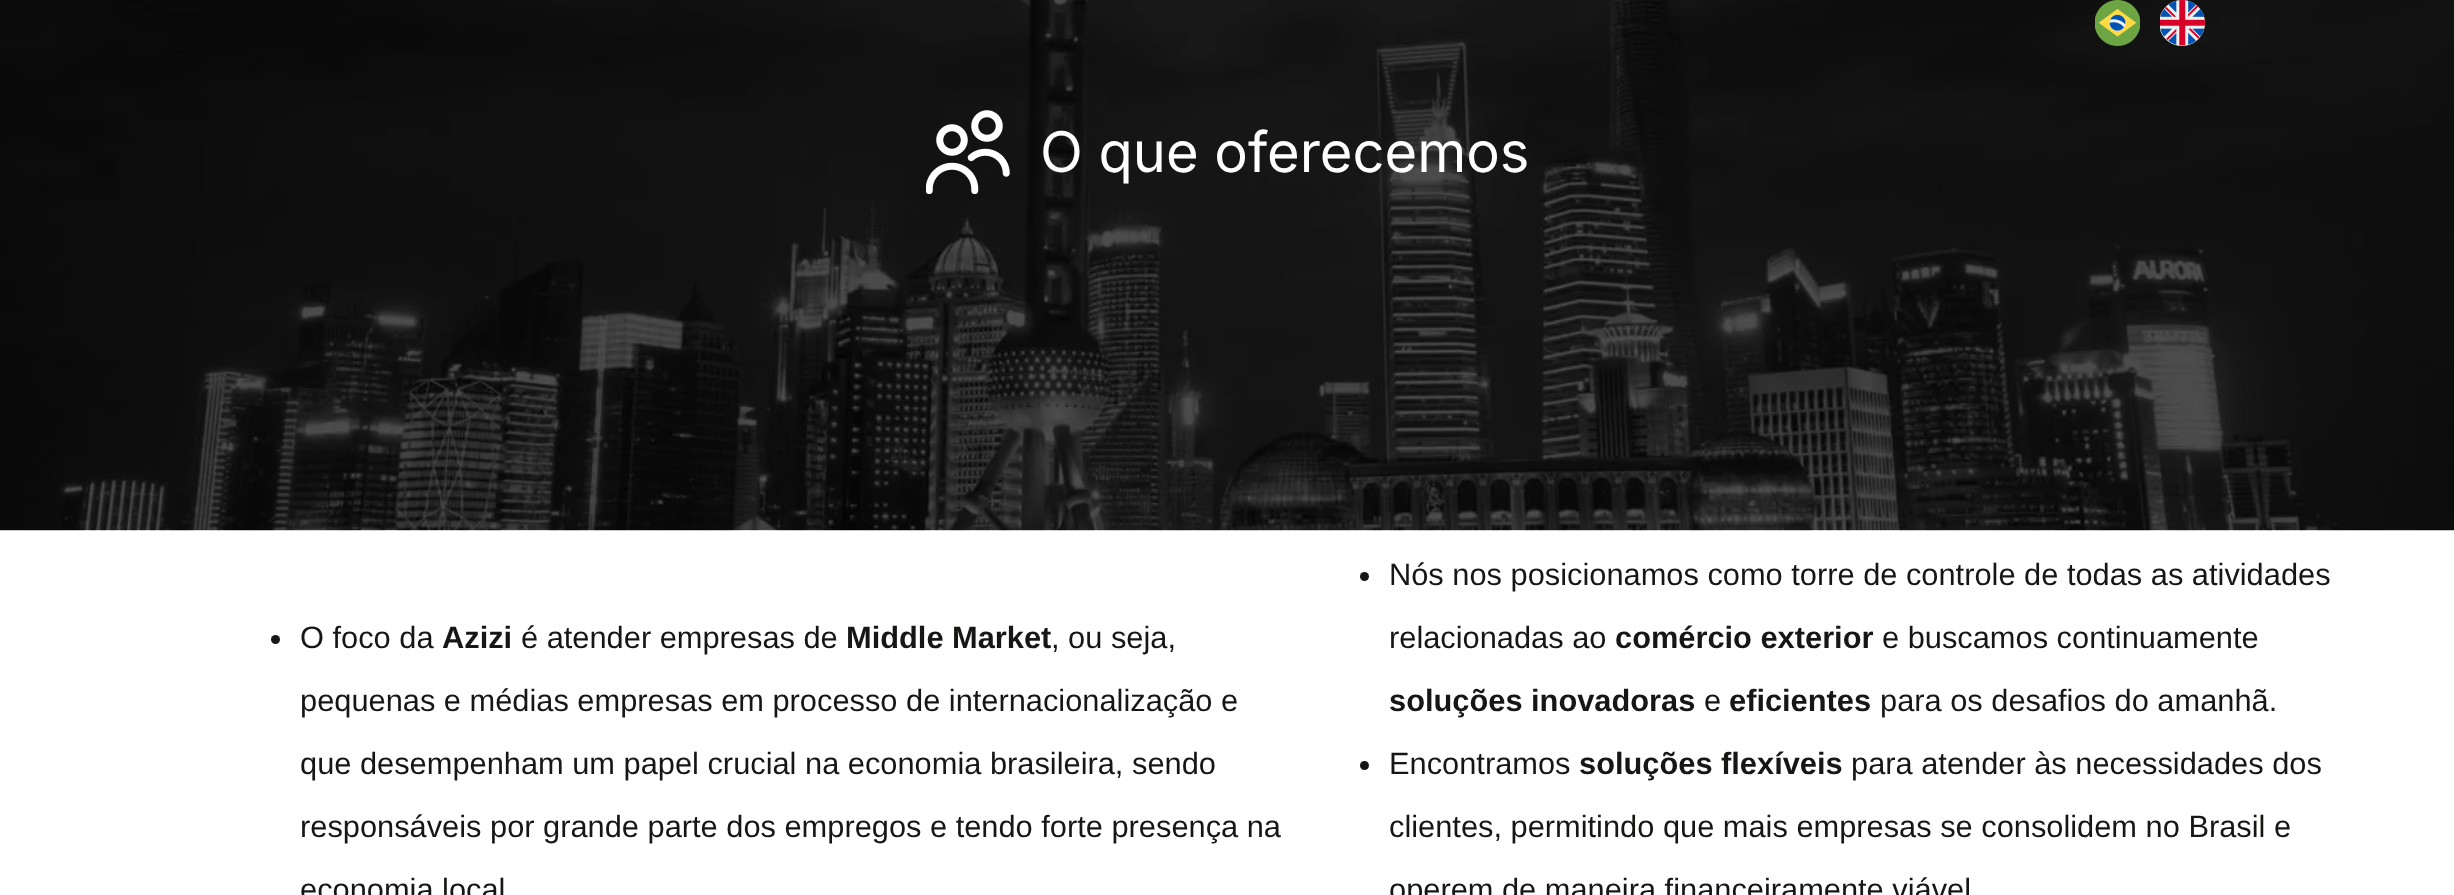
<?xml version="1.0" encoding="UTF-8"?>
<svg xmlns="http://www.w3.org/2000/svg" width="2454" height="895">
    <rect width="100%" height="100%" fill="#FFFFFF"/>
    <image x="0" y="0" width="2454" height="531" href="img_03.png"/>
    <image x="2095" y="0" width="45" height="46" href="img_01.png"/>
    <image x="2160" y="0" width="45" height="46" href="img_02.png"/>
    <image x="926" y="110" width="84" height="84" href="img_04.png"/>
    <text x="1040" y="172" font-family="Inter" font-size="56" fill="#FFFFFF">O que oferecemos</text>
    <circle cx="275.5" cy="639.5" r="4.5" fill="#161615"/>
    <text x="300" y="648" font-family="Liberation Sans" font-size="30.8" fill="#161615">O foco da</text>
    <text x="442" y="648" font-family="Liberation Sans" font-size="30.8" font-weight="700" fill="#161615">Azizi</text>
    <text x="521" y="648" font-family="Liberation Sans" font-size="30.8" fill="#161615">é atender empresas de</text>
    <text x="846" y="648" font-family="Liberation Sans" font-size="30.8" font-weight="700" fill="#161615">Middle Market</text>
    <text x="1051" y="648" font-family="Liberation Sans" font-size="30.8" fill="#161615">, ou seja,</text>
    <text x="300" y="711" font-family="Liberation Sans" font-size="30.8" fill="#161615">pequenas e médias empresas em processo de internacionalização e</text>
    <text x="300" y="774" font-family="Liberation Sans" font-size="30.8" fill="#161615">que desempenham um papel crucial na economia brasileira, sendo</text>
    <text x="300" y="837" font-family="Liberation Sans" font-size="30.8" fill="#161615">responsáveis por grande parte dos empregos e tendo forte presença na</text>
    <text x="300" y="900" font-family="Liberation Sans" font-size="30.8" fill="#161615">economia local</text>
    <circle cx="1364.5" cy="576.5" r="4.5" fill="#161615"/>
    <text x="1389" y="585" font-family="Liberation Sans" font-size="30.8" fill="#161615">Nós nos posicionamos como torre de controle de todas as atividades</text>
    <text x="1389" y="648" font-family="Liberation Sans" font-size="30.8" fill="#161615">relacionadas ao</text>
    <text x="1615" y="648" font-family="Liberation Sans" font-size="30.8" font-weight="700" fill="#161615">comércio exterior</text>
    <text x="1882" y="648" font-family="Liberation Sans" font-size="30.8" fill="#161615">e buscamos continuamente</text>
    <text x="1389" y="711" font-family="Liberation Sans" font-size="30.8" font-weight="700" fill="#161615">soluções inovadoras</text>
    <text x="1704" y="711" font-family="Liberation Sans" font-size="30.8" fill="#161615">e</text>
    <text x="1729" y="711" font-family="Liberation Sans" font-size="30.8" font-weight="700" fill="#161615">eficientes</text>
    <text x="1880" y="711" font-family="Liberation Sans" font-size="30.8" fill="#161615">para os desafios do amanhã.</text>
    <circle cx="1364.5" cy="765.5" r="4.5" fill="#161615"/>
    <text x="1389" y="774" font-family="Liberation Sans" font-size="30.8" fill="#161615">Encontramos</text>
    <text x="1579" y="774" font-family="Liberation Sans" font-size="30.8" font-weight="700" fill="#161615">soluções flexíveis</text>
    <text x="1851" y="774" font-family="Liberation Sans" font-size="30.8" fill="#161615">para atender às necessidades dos</text>
    <text x="1389" y="837" font-family="Liberation Sans" font-size="30.8" fill="#161615">clientes, permitindo que mais empresas se consolidem no Brasil e</text>
    <text x="1389" y="900" font-family="Liberation Sans" font-size="30.8" fill="#161615">operem de maneira financeiramente viável</text>
</svg>
